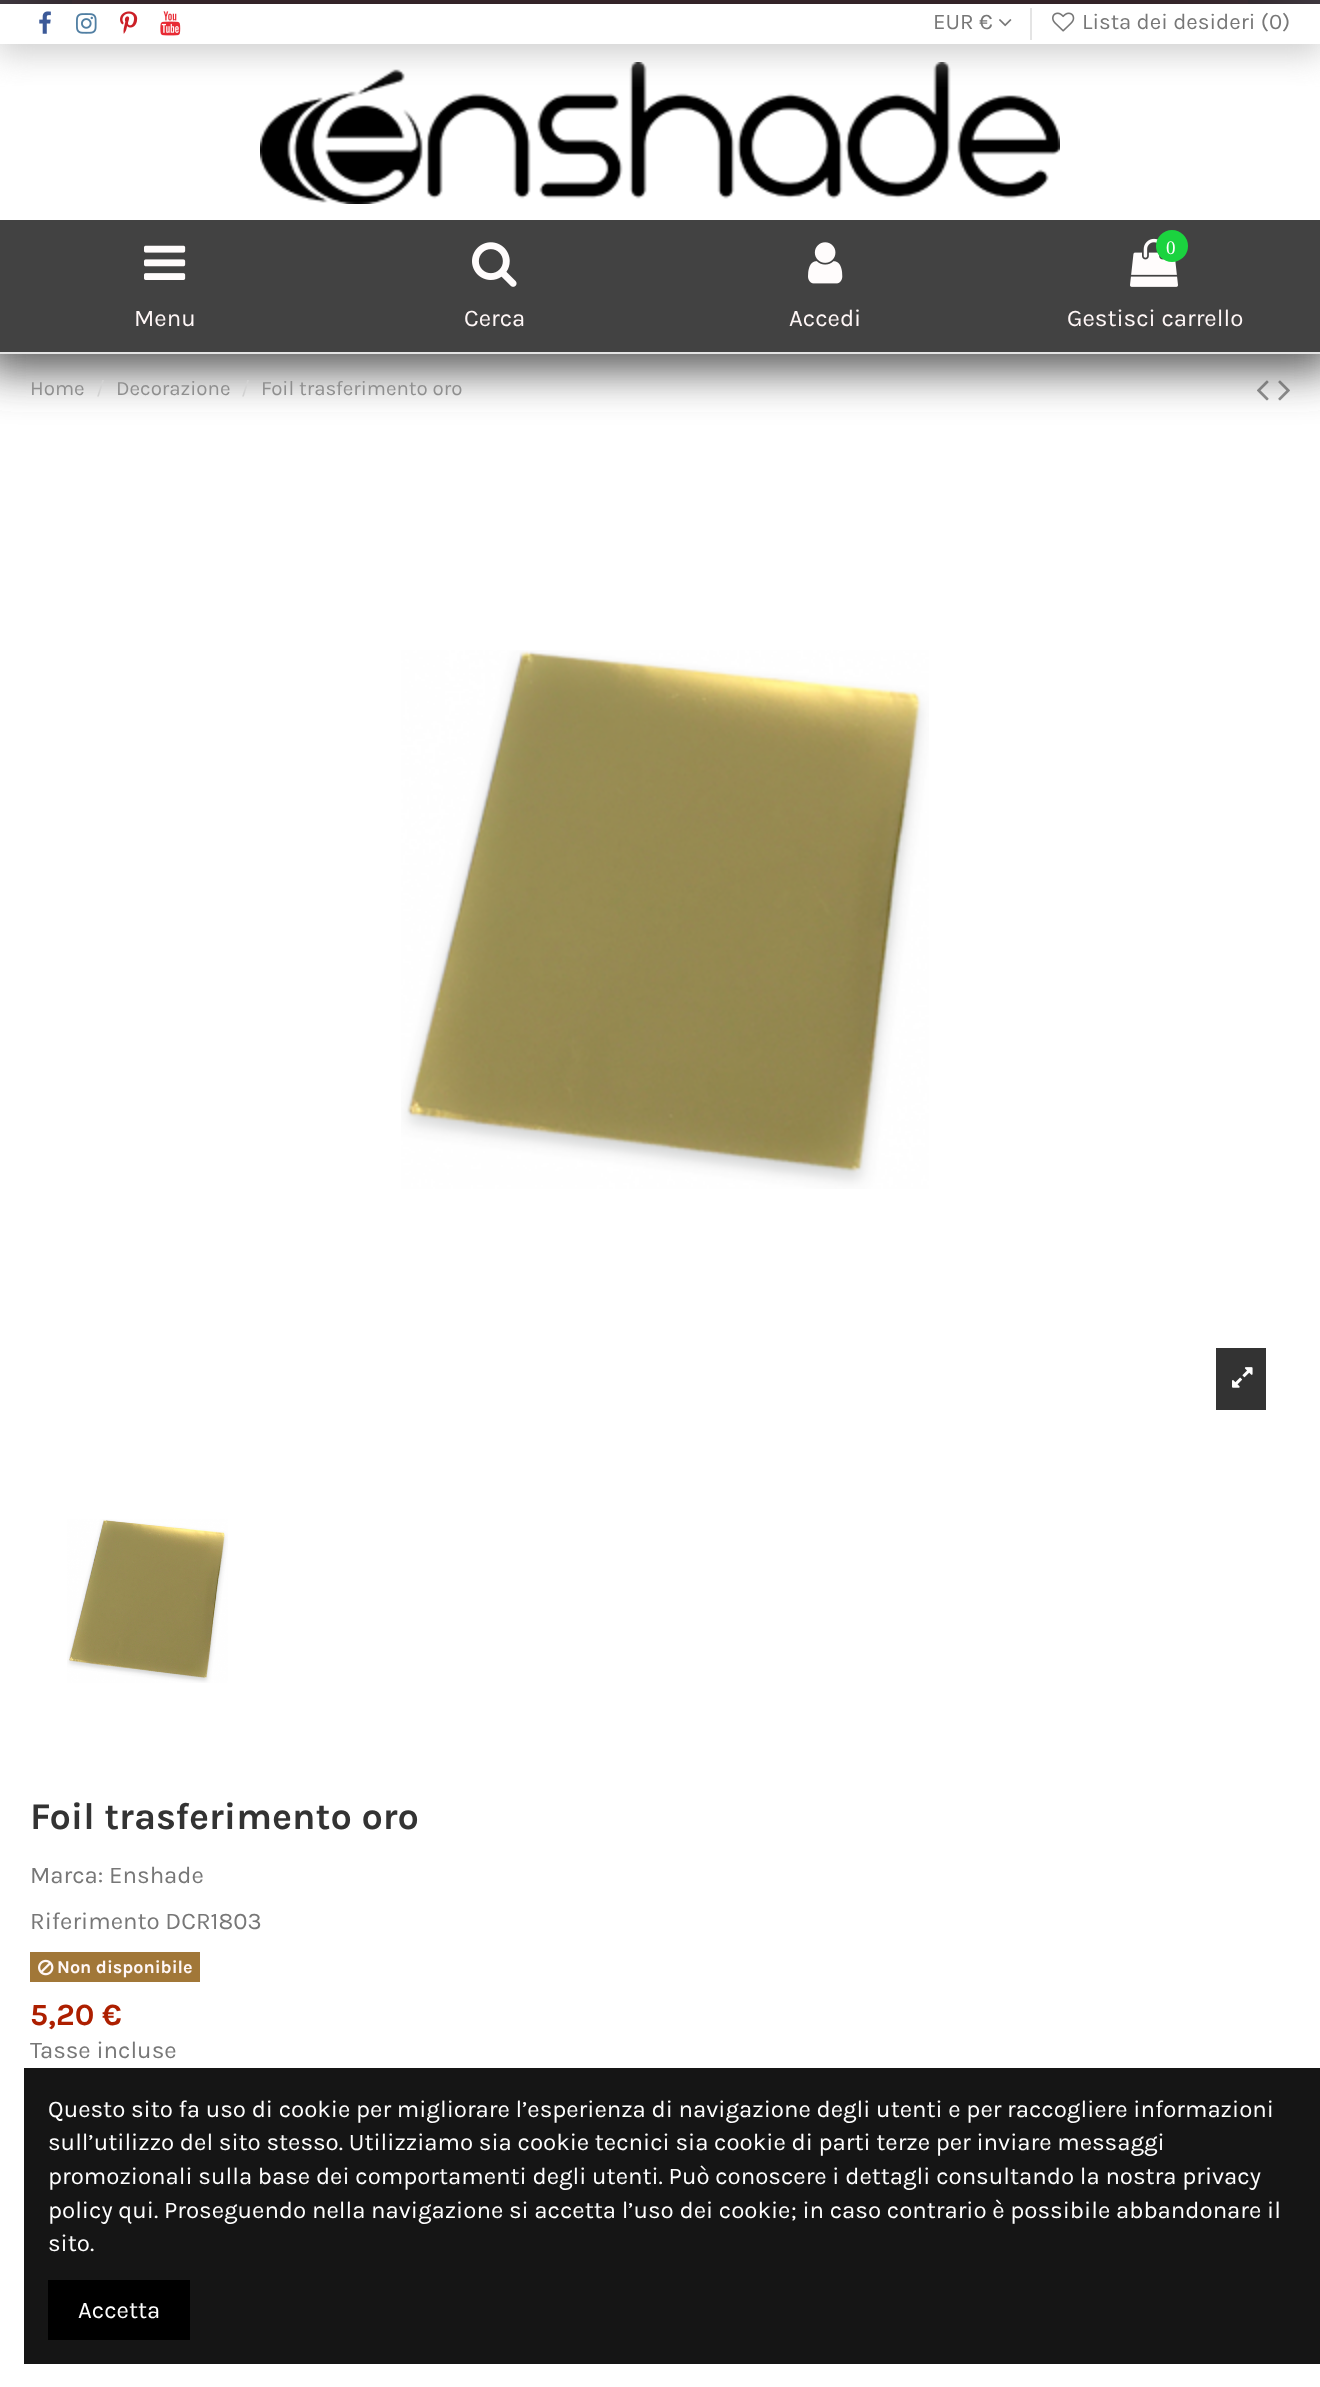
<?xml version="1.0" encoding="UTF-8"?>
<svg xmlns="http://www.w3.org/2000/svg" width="1320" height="2387">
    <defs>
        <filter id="blur1" x="-50%" y="-200%" width="200%" height="500%"><feGaussianBlur stdDeviation="96"/></filter>
        <clipPath id="clip1"><rect x="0" y="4" width="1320" height="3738"/></clipPath>
        <filter id="blur2" x="-50%" y="-200%" width="200%" height="500%"><feGaussianBlur stdDeviation="23"/></filter>
        <clipPath id="clip2"><rect x="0" y="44" width="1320" height="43"/></clipPath>
        <filter id="blur3" x="-50%" y="-200%" width="200%" height="500%"><feGaussianBlur stdDeviation="16"/></filter>
    </defs>
    <rect width="100%" height="100%" fill="#4E515C"/>
    <rect x="-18" y="-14" width="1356" height="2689" fill="#1C0303" filter="url(#blur1)"/>
    <rect x="0" y="354" width="1320" height="2033" fill="#FFFFFF"/>
    <image x="1257" y="380" width="12" height="21" href="img_12.png"/>
    <image x="1278" y="380" width="12" height="21" href="img_13.png"/>
    <g clip-path="url(#clip1)">
        <rect x="-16" y="-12" width="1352" height="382" fill="#525252" filter="url(#blur2)"/>
    </g>
    <rect x="0" y="4" width="1320" height="216" fill="#FFFFFF"/>
    <image x="260" y="62" width="800" height="142" href="img_07.png"/>
    <g clip-path="url(#clip1)">
        <g clip-path="url(#clip2)">
            <rect x="-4" y="6" width="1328" height="48" fill="#CFCFCF" filter="url(#blur3)"/>
        </g>
    </g>
    <image x="39" y="11" width="12" height="23" href="img_01.png"/>
    <image x="76" y="13" width="21" height="21" href="img_02.png"/>
    <image x="120" y="11" width="18" height="23" href="img_03.png"/>
    <image x="160" y="11" width="21" height="25" href="img_04.png"/>
    <text x="933" y="29" font-family="Karla" font-size="22.25" fill="#777777">EUR €</text>
    <image x="999" y="19" width="13" height="8" href="img_05.png"/>
    <rect x="1030" y="8" width="2" height="32" fill="#E4E4E4"/>
    <image x="1052" y="12" width="23" height="20" href="img_06.png"/>
    <text x="1082" y="29" font-family="Karla" font-size="22.25" fill="#777777">Lista dei desideri (</text>
    <text x="1269" y="29" font-family="Karla" font-size="22.25" fill="#777777">0)</text>
    <rect x="0" y="352" width="1320" height="2" fill="#E3E3E3"/>
    <rect x="0" y="220" width="1320" height="132" fill="#424242"/>
    <image x="144" y="245" width="42" height="35" href="img_08.png"/>
    <text x="134" y="326" font-family="Karla" font-size="24" fill="#FFF7F7">Menu</text>
    <image x="472" y="242" width="45" height="45" href="img_09.png"/>
    <text x="464" y="326" font-family="Karla" font-size="24" fill="#FFF7F7">Cerca</text>
    <image x="808" y="242" width="35" height="42" href="img_10.png"/>
    <text x="789" y="326" font-family="Karla" font-size="24" fill="#FFF7F7">Accedi</text>
    <image x="1130" y="238" width="48" height="49" href="img_11.png"/>
    <circle cx="1172" cy="246" r="16" fill="#1BD33F"/>
    <text x="1166" y="254" font-family="Liberation Serif" font-size="19" fill="#FFFFFF">0</text>
    <text x="1067" y="326" font-family="Karla" font-size="24" fill="#FFF7F7">Gestisci carrello</text>
    <text x="30" y="395" font-family="Karla" font-size="20.5" fill="#8F8F8F">Home</text>
    <text x="96" y="395" font-family="Karla" font-size="20.5" fill="#D2D2D2">/</text>
    <text x="116" y="395" font-family="Karla" font-size="20.5" fill="#8F8F8F">Decorazione</text>
    <text x="241" y="395" font-family="Karla" font-size="20.5" fill="#D2D2D2">/</text>
    <text x="261" y="395" font-family="Karla" font-size="20.5" fill="#8F8F8F">Foil trasferimento oro</text>
    <image x="401" y="650" width="528" height="539" href="img_14.png"/>
    <rect x="1216" y="1348" width="50" height="62" fill="#333333"/>
    <image x="1232" y="1367" width="21" height="21" href="img_15.png"/>
    <image x="67" y="1519" width="161" height="164" href="img_16.png"/>
    <text x="30" y="1829" font-family="Karla" font-size="37.75" font-weight="700" fill="#333333">Foil trasferimento oro</text>
    <text font-family="Karla" font-size="24" fill="#777777">
        <tspan x="30" y="1883">Marca: Enshade</tspan>
        <tspan x="30" y="1929">Riferimento DCR1803</tspan>
    </text>
    <rect x="30" y="1952" width="170" height="30" fill="#A17738"/>
    <image x="38" y="1959" width="16" height="17" href="img_17.png"/>
    <text x="57" y="1973" font-family="Karla" font-size="18" font-weight="700" fill="#FFF7F7">Non disponibile</text>
    <text x="30" y="2025" font-family="Karla" font-size="31" font-weight="700" fill="#AD1F00">5,20 €</text>
    <text x="30" y="2058" font-family="Karla" font-size="24" fill="#777777">Tasse incluse</text>
    <rect x="24" y="2068" width="1296" height="296" fill="#151515"/>
    <text font-family="Karla" font-size="24" fill="#FFFFFF">
        <tspan x="48" y="2117">Questo sito fa uso di cookie per migliorare l’esperienza di navigazione degli utenti e per raccogliere informazioni</tspan>
        <tspan x="48" y="2150">sull’utilizzo del sito stesso. Utilizziamo sia cookie tecnici sia cookie di parti terze per inviare messaggi</tspan>
        <tspan x="48" y="2184">promozionali sulla base dei comportamenti degli utenti. Può conoscere i dettagli consultando la nostra privacy</tspan>
        <tspan x="48" y="2218">policy qui. Proseguendo nella navigazione si accetta l’uso dei cookie; in caso contrario è possibile abbandonare il</tspan>
        <tspan x="48" y="2251">sito.</tspan>
    </text>
    <rect x="48" y="2280" width="142" height="60" fill="#000000"/>
    <text x="78" y="2318" font-family="Karla" font-size="24" fill="#FFFFFF">Accetta</text>
</svg>
